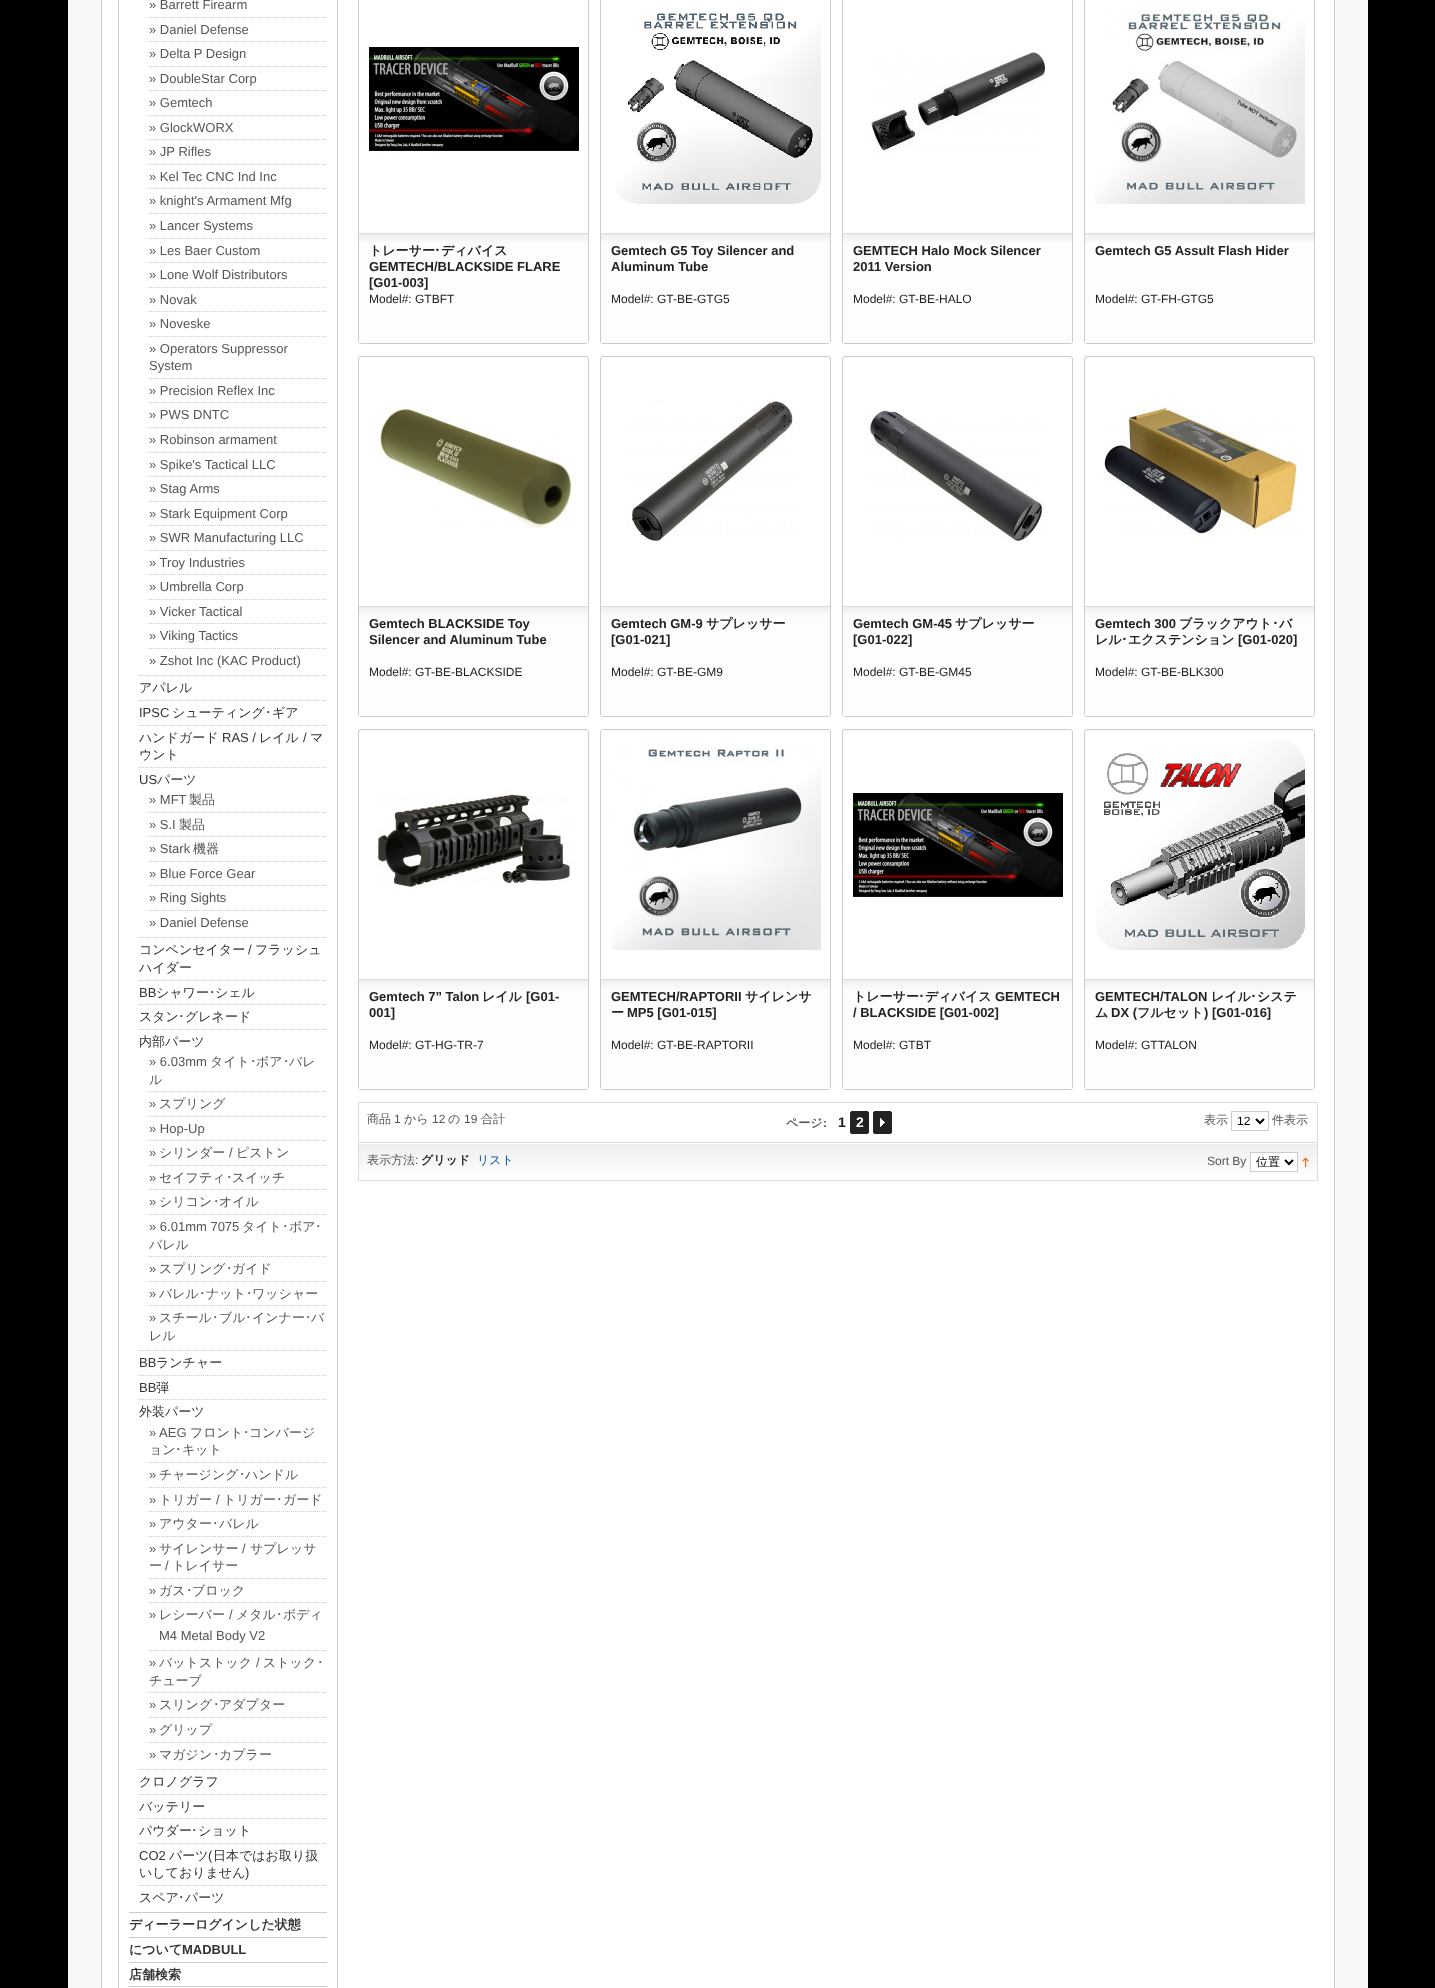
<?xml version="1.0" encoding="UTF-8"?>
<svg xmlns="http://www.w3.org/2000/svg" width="1435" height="1988">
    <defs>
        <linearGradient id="g1" gradientUnits="userSpaceOnUse" x1="359" y1="1144" x2="359" y2="1180"><stop offset="0" stop-color="#EEEEEE"/><stop offset="1" stop-color="#FFFFFF"/></linearGradient>
    </defs>
    <rect width="100%" height="100%" fill="#000000"/>
    <rect x="68" y="0" width="1300" height="1988" fill="#F8F8F8"/>
    <rect x="101.5" y="-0.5" width="1233" height="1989" fill="#FFFFFF" stroke="#CCCCCC"/>
    <rect x="337" y="0" width="1" height="1988" fill="#CCCCCC"/>
    <rect x="118" y="0" width="1" height="1988" fill="#CCCCCC"/>
    <rect x="129" y="1912" width="198" height="1" fill="#CACACA"/>
    <path d="M 139 675.5 H 327" fill="none" stroke="#CACACA" stroke-dasharray="1 1"/>
    <path d="M 149 17.5 H 327" fill="none" stroke="#CACACA" stroke-dasharray="1 1"/>
    <text x="149" y="9" font-family="Liberation Sans" font-size="13" fill="#555555">» Barrett Firearm</text>
    <path d="M 149 41.5 H 327" fill="none" stroke="#CACACA" stroke-dasharray="1 1"/>
    <text x="149" y="34" font-family="Liberation Sans" font-size="13" fill="#555555">» Daniel Defense</text>
    <path d="M 149 66.5 H 327" fill="none" stroke="#CACACA" stroke-dasharray="1 1"/>
    <text x="149" y="58" font-family="Liberation Sans" font-size="13" fill="#555555">» Delta P Design</text>
    <path d="M 149 90.5 H 327" fill="none" stroke="#CACACA" stroke-dasharray="1 1"/>
    <text x="149" y="83" font-family="Liberation Sans" font-size="13" fill="#555555">» DoubleStar Corp</text>
    <path d="M 149 115.5 H 327" fill="none" stroke="#CACACA" stroke-dasharray="1 1"/>
    <text x="149" y="107" font-family="Liberation Sans" font-size="13" fill="#555555">» Gemtech</text>
    <path d="M 149 139.5 H 327" fill="none" stroke="#CACACA" stroke-dasharray="1 1"/>
    <text x="149" y="132" font-family="Liberation Sans" font-size="13" fill="#555555">» GlockWORX</text>
    <path d="M 149 164.5 H 327" fill="none" stroke="#CACACA" stroke-dasharray="1 1"/>
    <text x="149" y="156" font-family="Liberation Sans" font-size="13" fill="#555555">» JP Rifles</text>
    <path d="M 149 188.5 H 327" fill="none" stroke="#CACACA" stroke-dasharray="1 1"/>
    <text x="149" y="181" font-family="Liberation Sans" font-size="13" fill="#555555">» Kel Tec CNC Ind Inc</text>
    <path d="M 149 213.5 H 327" fill="none" stroke="#CACACA" stroke-dasharray="1 1"/>
    <text x="149" y="205" font-family="Liberation Sans" font-size="13" fill="#555555">» knight's Armament Mfg</text>
    <path d="M 149 238.5 H 327" fill="none" stroke="#CACACA" stroke-dasharray="1 1"/>
    <text x="149" y="230" font-family="Liberation Sans" font-size="13" fill="#555555">» Lancer Systems</text>
    <path d="M 149 262.5 H 327" fill="none" stroke="#CACACA" stroke-dasharray="1 1"/>
    <text x="149" y="255" font-family="Liberation Sans" font-size="13" fill="#555555">» Les Baer Custom</text>
    <path d="M 149 287.5 H 327" fill="none" stroke="#CACACA" stroke-dasharray="1 1"/>
    <text x="149" y="279" font-family="Liberation Sans" font-size="13" fill="#555555">» Lone Wolf Distributors</text>
    <path d="M 149 311.5 H 327" fill="none" stroke="#CACACA" stroke-dasharray="1 1"/>
    <text x="149" y="304" font-family="Liberation Sans" font-size="13" fill="#555555">» Novak</text>
    <path d="M 149 336.5 H 327" fill="none" stroke="#CACACA" stroke-dasharray="1 1"/>
    <text x="149" y="328" font-family="Liberation Sans" font-size="13" fill="#555555">» Noveske</text>
    <path d="M 149 378.5 H 327" fill="none" stroke="#CACACA" stroke-dasharray="1 1"/>
    <text font-family="Liberation Sans" font-size="13" fill="#555555">
        <tspan x="149" y="353">» Operators Suppressor</tspan>
        <tspan x="149" y="370">System</tspan>
    </text>
    <path d="M 149 402.5 H 327" fill="none" stroke="#CACACA" stroke-dasharray="1 1"/>
    <text x="149" y="395" font-family="Liberation Sans" font-size="13" fill="#555555">» Precision Reflex Inc</text>
    <path d="M 149 427.5 H 327" fill="none" stroke="#CACACA" stroke-dasharray="1 1"/>
    <text x="149" y="419" font-family="Liberation Sans" font-size="13" fill="#555555">» PWS DNTC</text>
    <path d="M 149 452.5 H 327" fill="none" stroke="#CACACA" stroke-dasharray="1 1"/>
    <text x="149" y="444" font-family="Liberation Sans" font-size="13" fill="#555555">» Robinson armament</text>
    <path d="M 149 476.5 H 327" fill="none" stroke="#CACACA" stroke-dasharray="1 1"/>
    <text x="149" y="469" font-family="Liberation Sans" font-size="13" fill="#555555">» Spike's Tactical LLC</text>
    <path d="M 149 501.5 H 327" fill="none" stroke="#CACACA" stroke-dasharray="1 1"/>
    <text x="149" y="493" font-family="Liberation Sans" font-size="13" fill="#555555">» Stag Arms</text>
    <path d="M 149 525.5 H 327" fill="none" stroke="#CACACA" stroke-dasharray="1 1"/>
    <text x="149" y="518" font-family="Liberation Sans" font-size="13" fill="#555555">» Stark Equipment Corp</text>
    <path d="M 149 550.5 H 327" fill="none" stroke="#CACACA" stroke-dasharray="1 1"/>
    <text x="149" y="542" font-family="Liberation Sans" font-size="13" fill="#555555">» SWR Manufacturing LLC</text>
    <path d="M 149 574.5 H 327" fill="none" stroke="#CACACA" stroke-dasharray="1 1"/>
    <text x="149" y="567" font-family="Liberation Sans" font-size="13" fill="#555555">» Troy Industries</text>
    <path d="M 149 599.5 H 327" fill="none" stroke="#CACACA" stroke-dasharray="1 1"/>
    <text x="149" y="591" font-family="Liberation Sans" font-size="13" fill="#555555">» Umbrella Corp</text>
    <path d="M 149 623.5 H 327" fill="none" stroke="#CACACA" stroke-dasharray="1 1"/>
    <text x="149" y="616" font-family="Liberation Sans" font-size="13" fill="#555555">» Vicker Tactical</text>
    <path d="M 149 648.5 H 327" fill="none" stroke="#CACACA" stroke-dasharray="1 1"/>
    <text font-family="Liberation Sans" font-size="13" fill="#555555">
        <tspan x="149" y="640">» Viking Tactics</tspan>
        <tspan x="149" y="665">» Zshot Inc (KAC Product)</tspan>
    </text>
    <path d="M 139 700.5 H 327" fill="none" stroke="#CACACA" stroke-dasharray="1 1"/>
    <text x="139" y="692" font-family="WenQuanYi Zen Hei" font-size="13" font-weight="500" fill="#333333">アパレル</text>
    <path d="M 139 725.5 H 327" fill="none" stroke="#CACACA" stroke-dasharray="1 1"/>
    <text x="139" y="717" font-family="Liberation Sans" font-size="13" fill="#333333">IPSC</text>
    <text x="172" y="717" font-family="WenQuanYi Zen Hei" font-size="13" font-weight="500" fill="#333333">シューティング</text>
    <text x="265" y="717" font-family="IPAPGothic" font-size="13" fill="#333333">･</text>
    <text x="272" y="717" font-family="WenQuanYi Zen Hei" font-size="13" font-weight="500" fill="#333333">ギア</text>
    <path d="M 139 767.5 H 327" fill="none" stroke="#CACACA" stroke-dasharray="1 1"/>
    <text x="139" y="742" font-family="WenQuanYi Zen Hei" font-size="13" font-weight="500" fill="#333333">ハンドガード</text>
    <text x="222" y="742" font-family="Liberation Sans" font-size="13" fill="#333333">RAS /</text>
    <text x="259" y="742" font-family="WenQuanYi Zen Hei" font-size="13" font-weight="500" fill="#333333">レイル</text>
    <text x="303" y="742" font-family="Liberation Sans" font-size="13" fill="#333333">/</text>
    <text x="310" y="742" font-family="WenQuanYi Zen Hei" font-size="13" font-weight="500" fill="#333333">マ</text>
    <text x="139" y="759" font-family="WenQuanYi Zen Hei" font-size="13" font-weight="500" fill="#333333">ウント</text>
    <path d="M 139 937.5 H 327" fill="none" stroke="#CACACA" stroke-dasharray="1 1"/>
    <text x="139" y="784" font-family="Liberation Sans" font-size="13" fill="#333333">US</text>
    <text x="157" y="784" font-family="WenQuanYi Zen Hei" font-size="13" font-weight="500" fill="#333333">パーツ</text>
    <path d="M 149 812.5 H 327" fill="none" stroke="#CACACA" stroke-dasharray="1 1"/>
    <text x="149" y="804" font-family="Liberation Sans" font-size="13" fill="#555555">» MFT</text>
    <text x="189" y="804" font-family="WenQuanYi Zen Hei" font-size="13" font-weight="500" fill="#555555">製品</text>
    <path d="M 149 836.5 H 327" fill="none" stroke="#CACACA" stroke-dasharray="1 1"/>
    <text x="149" y="829" font-family="Liberation Sans" font-size="13" fill="#555555">» S.I</text>
    <text x="179" y="829" font-family="WenQuanYi Zen Hei" font-size="13" font-weight="500" fill="#555555">製品</text>
    <path d="M 149 861.5 H 327" fill="none" stroke="#CACACA" stroke-dasharray="1 1"/>
    <text x="149" y="853" font-family="Liberation Sans" font-size="13" fill="#555555">» Stark</text>
    <text x="193" y="853" font-family="WenQuanYi Zen Hei" font-size="13" font-weight="500" fill="#555555">機器</text>
    <path d="M 149 885.5 H 327" fill="none" stroke="#CACACA" stroke-dasharray="1 1"/>
    <text x="149" y="878" font-family="Liberation Sans" font-size="13" fill="#555555">» Blue Force Gear</text>
    <path d="M 149 910.5 H 327" fill="none" stroke="#CACACA" stroke-dasharray="1 1"/>
    <text font-family="Liberation Sans" font-size="13" fill="#555555">
        <tspan x="149" y="902">» Ring Sights</tspan>
        <tspan x="149" y="927">» Daniel Defense</tspan>
    </text>
    <path d="M 139 980.5 H 327" fill="none" stroke="#CACACA" stroke-dasharray="1 1"/>
    <text x="139" y="954" font-family="WenQuanYi Zen Hei" font-size="13" font-weight="500" fill="#333333">コンペンセイター</text>
    <text x="248" y="954" font-family="Liberation Sans" font-size="13" fill="#333333">/</text>
    <text x="255" y="954" font-family="WenQuanYi Zen Hei" font-size="13" font-weight="500" fill="#333333">フラッシュ</text>
    <text x="139" y="972" font-family="WenQuanYi Zen Hei" font-size="13" font-weight="500" fill="#333333">ハイダー</text>
    <path d="M 139 1004.5 H 327" fill="none" stroke="#CACACA" stroke-dasharray="1 1"/>
    <text x="139" y="997" font-family="Liberation Sans" font-size="13" fill="#333333">BB</text>
    <text x="156" y="997" font-family="WenQuanYi Zen Hei" font-size="13" font-weight="500" fill="#333333">シャワー</text>
    <text x="209" y="997" font-family="IPAPGothic" font-size="13" fill="#333333">･</text>
    <text x="215" y="997" font-family="WenQuanYi Zen Hei" font-size="13" font-weight="500" fill="#333333">シェル</text>
    <path d="M 139 1029.5 H 327" fill="none" stroke="#CACACA" stroke-dasharray="1 1"/>
    <text x="139" y="1021" font-family="WenQuanYi Zen Hei" font-size="13" font-weight="500" fill="#333333">スタン</text>
    <text x="178" y="1021" font-family="IPAPGothic" font-size="13" fill="#333333">･</text>
    <text x="185" y="1021" font-family="WenQuanYi Zen Hei" font-size="13" font-weight="500" fill="#333333">グレネード</text>
    <path d="M 139 1350.5 H 327" fill="none" stroke="#CACACA" stroke-dasharray="1 1"/>
    <text x="139" y="1046" font-family="WenQuanYi Zen Hei" font-size="13" font-weight="500" fill="#333333">内部パーツ</text>
    <path d="M 149 1091.5 H 327" fill="none" stroke="#CACACA" stroke-dasharray="1 1"/>
    <text x="149" y="1066" font-family="Liberation Sans" font-size="13" fill="#555555">» 6.03mm</text>
    <text x="210" y="1066" font-family="WenQuanYi Zen Hei" font-size="13" font-weight="500" fill="#555555">タイト</text>
    <text x="250" y="1066" font-family="IPAPGothic" font-size="13" fill="#555555">･</text>
    <text x="256" y="1066" font-family="WenQuanYi Zen Hei" font-size="13" font-weight="500" fill="#555555">ボア</text>
    <text x="283" y="1066" font-family="IPAPGothic" font-size="13" fill="#555555">･</text>
    <text x="289" y="1066" font-family="WenQuanYi Zen Hei" font-size="13" font-weight="500" fill="#555555">バレ</text>
    <text x="149" y="1084" font-family="WenQuanYi Zen Hei" font-size="13" font-weight="500" fill="#555555">ル</text>
    <path d="M 149 1116.5 H 327" fill="none" stroke="#CACACA" stroke-dasharray="1 1"/>
    <text x="149" y="1108" font-family="Liberation Sans" font-size="13" fill="#555555">»</text>
    <text x="159" y="1108" font-family="WenQuanYi Zen Hei" font-size="13" font-weight="500" fill="#555555">スプリング</text>
    <path d="M 149 1140.5 H 327" fill="none" stroke="#CACACA" stroke-dasharray="1 1"/>
    <text x="149" y="1133" font-family="Liberation Sans" font-size="13" fill="#555555">» Hop-Up</text>
    <path d="M 149 1165.5 H 327" fill="none" stroke="#CACACA" stroke-dasharray="1 1"/>
    <text x="149" y="1157" font-family="Liberation Sans" font-size="13" fill="#555555">»</text>
    <text x="159" y="1157" font-family="WenQuanYi Zen Hei" font-size="13" font-weight="500" fill="#555555">シリンダー</text>
    <text x="229" y="1157" font-family="Liberation Sans" font-size="13" fill="#555555">/</text>
    <text x="236" y="1157" font-family="WenQuanYi Zen Hei" font-size="13" font-weight="500" fill="#555555">ピストン</text>
    <path d="M 149 1189.5 H 327" fill="none" stroke="#CACACA" stroke-dasharray="1 1"/>
    <text x="149" y="1182" font-family="Liberation Sans" font-size="13" fill="#555555">»</text>
    <text x="159" y="1182" font-family="WenQuanYi Zen Hei" font-size="13" font-weight="500" fill="#555555">セイフティ</text>
    <text x="226" y="1182" font-family="IPAPGothic" font-size="13" fill="#555555">･</text>
    <text x="232" y="1182" font-family="WenQuanYi Zen Hei" font-size="13" font-weight="500" fill="#555555">スイッチ</text>
    <path d="M 149 1214.5 H 327" fill="none" stroke="#CACACA" stroke-dasharray="1 1"/>
    <text x="149" y="1206" font-family="Liberation Sans" font-size="13" fill="#555555">»</text>
    <text x="159" y="1206" font-family="WenQuanYi Zen Hei" font-size="13" font-weight="500" fill="#555555">シリコン</text>
    <text x="213" y="1206" font-family="IPAPGothic" font-size="13" fill="#555555">･</text>
    <text x="219" y="1206" font-family="WenQuanYi Zen Hei" font-size="13" font-weight="500" fill="#555555">オイル</text>
    <path d="M 149 1256.5 H 327" fill="none" stroke="#CACACA" stroke-dasharray="1 1"/>
    <text x="149" y="1231" font-family="Liberation Sans" font-size="13" fill="#555555">» 6.01mm 7075</text>
    <text x="242" y="1231" font-family="WenQuanYi Zen Hei" font-size="13" font-weight="500" fill="#555555">タイト</text>
    <text x="282" y="1231" font-family="IPAPGothic" font-size="13" fill="#555555">･</text>
    <text x="289" y="1231" font-family="WenQuanYi Zen Hei" font-size="13" font-weight="500" fill="#555555">ボア</text>
    <text x="315" y="1231" font-family="IPAPGothic" font-size="13" fill="#555555">･</text>
    <text x="149" y="1249" font-family="WenQuanYi Zen Hei" font-size="13" font-weight="500" fill="#555555">バレル</text>
    <path d="M 149 1281.5 H 327" fill="none" stroke="#CACACA" stroke-dasharray="1 1"/>
    <text x="149" y="1273" font-family="Liberation Sans" font-size="13" fill="#555555">»</text>
    <text x="159" y="1273" font-family="WenQuanYi Zen Hei" font-size="13" font-weight="500" fill="#555555">スプリング</text>
    <text x="226" y="1273" font-family="IPAPGothic" font-size="13" fill="#555555">･</text>
    <text x="232" y="1273" font-family="WenQuanYi Zen Hei" font-size="13" font-weight="500" fill="#555555">ガイド</text>
    <path d="M 149 1305.5 H 327" fill="none" stroke="#CACACA" stroke-dasharray="1 1"/>
    <text x="149" y="1298" font-family="Liberation Sans" font-size="13" fill="#555555">»</text>
    <text x="159" y="1298" font-family="WenQuanYi Zen Hei" font-size="13" font-weight="500" fill="#555555">バレル</text>
    <text x="199" y="1298" font-family="IPAPGothic" font-size="13" fill="#555555">･</text>
    <text x="206" y="1298" font-family="WenQuanYi Zen Hei" font-size="13" font-weight="500" fill="#555555">ナット</text>
    <text x="246" y="1298" font-family="IPAPGothic" font-size="13" fill="#555555">･</text>
    <text x="252" y="1298" font-family="WenQuanYi Zen Hei" font-size="13" font-weight="500" fill="#555555">ワッシャー</text>
    <text x="149" y="1322" font-family="Liberation Sans" font-size="13" fill="#555555">»</text>
    <text x="159" y="1322" font-family="WenQuanYi Zen Hei" font-size="13" font-weight="500" fill="#555555">スチール</text>
    <text x="212" y="1322" font-family="IPAPGothic" font-size="13" fill="#555555">･</text>
    <text x="219" y="1322" font-family="WenQuanYi Zen Hei" font-size="13" font-weight="500" fill="#555555">ブル</text>
    <text x="245" y="1322" font-family="IPAPGothic" font-size="13" fill="#555555">･</text>
    <text x="252" y="1322" font-family="WenQuanYi Zen Hei" font-size="13" font-weight="500" fill="#555555">インナー</text>
    <text x="305" y="1322" font-family="IPAPGothic" font-size="13" fill="#555555">･</text>
    <text x="311" y="1322" font-family="WenQuanYi Zen Hei" font-size="13" font-weight="500" fill="#555555">バ</text>
    <text x="149" y="1340" font-family="WenQuanYi Zen Hei" font-size="13" font-weight="500" fill="#555555">レル</text>
    <path d="M 139 1375.5 H 327" fill="none" stroke="#CACACA" stroke-dasharray="1 1"/>
    <text x="139" y="1367" font-family="Liberation Sans" font-size="13" fill="#333333">BB</text>
    <text x="156" y="1367" font-family="WenQuanYi Zen Hei" font-size="13" font-weight="500" fill="#333333">ランチャー</text>
    <path d="M 139 1399.5 H 327" fill="none" stroke="#CACACA" stroke-dasharray="1 1"/>
    <text x="139" y="1392" font-family="Liberation Sans" font-size="13" fill="#333333">BB</text>
    <text x="156" y="1392" font-family="WenQuanYi Zen Hei" font-size="13" font-weight="500" fill="#333333">弾</text>
    <path d="M 139 1769.5 H 327" fill="none" stroke="#CACACA" stroke-dasharray="1 1"/>
    <text x="139" y="1416" font-family="WenQuanYi Zen Hei" font-size="13" font-weight="500" fill="#333333">外装パーツ</text>
    <path d="M 149 1462.5 H 327" fill="none" stroke="#CACACA" stroke-dasharray="1 1"/>
    <text x="149" y="1437" font-family="Liberation Sans" font-size="13" fill="#555555">» AEG</text>
    <text x="190" y="1437" font-family="WenQuanYi Zen Hei" font-size="13" font-weight="500" fill="#555555">フロント</text>
    <text x="243" y="1437" font-family="IPAPGothic" font-size="13" fill="#555555">･</text>
    <text x="249" y="1437" font-family="WenQuanYi Zen Hei" font-size="13" font-weight="500" fill="#555555">コンバージ</text>
    <text x="149" y="1454" font-family="WenQuanYi Zen Hei" font-size="13" font-weight="500" fill="#555555">ョン</text>
    <text x="175" y="1454" font-family="IPAPGothic" font-size="13" fill="#555555">･</text>
    <text x="182" y="1454" font-family="WenQuanYi Zen Hei" font-size="13" font-weight="500" fill="#555555">キット</text>
    <path d="M 149 1487.5 H 327" fill="none" stroke="#CACACA" stroke-dasharray="1 1"/>
    <text x="149" y="1479" font-family="Liberation Sans" font-size="13" fill="#555555">»</text>
    <text x="159" y="1479" font-family="WenQuanYi Zen Hei" font-size="13" font-weight="500" fill="#555555">チャージング</text>
    <text x="239" y="1479" font-family="IPAPGothic" font-size="13" fill="#555555">･</text>
    <text x="245" y="1479" font-family="WenQuanYi Zen Hei" font-size="13" font-weight="500" fill="#555555">ハンドル</text>
    <path d="M 149 1511.5 H 327" fill="none" stroke="#CACACA" stroke-dasharray="1 1"/>
    <text x="149" y="1504" font-family="Liberation Sans" font-size="13" fill="#555555">»</text>
    <text x="159" y="1504" font-family="WenQuanYi Zen Hei" font-size="13" font-weight="500" fill="#555555">トリガー</text>
    <text x="216" y="1504" font-family="Liberation Sans" font-size="13" fill="#555555">/</text>
    <text x="223" y="1504" font-family="WenQuanYi Zen Hei" font-size="13" font-weight="500" fill="#555555">トリガー</text>
    <text x="276" y="1504" font-family="IPAPGothic" font-size="13" fill="#555555">･</text>
    <text x="283" y="1504" font-family="WenQuanYi Zen Hei" font-size="13" font-weight="500" fill="#555555">ガード</text>
    <path d="M 149 1536.5 H 327" fill="none" stroke="#CACACA" stroke-dasharray="1 1"/>
    <text x="149" y="1528" font-family="Liberation Sans" font-size="13" fill="#555555">»</text>
    <text x="159" y="1528" font-family="WenQuanYi Zen Hei" font-size="13" font-weight="500" fill="#555555">アウター</text>
    <text x="212" y="1528" font-family="IPAPGothic" font-size="13" fill="#555555">･</text>
    <text x="219" y="1528" font-family="WenQuanYi Zen Hei" font-size="13" font-weight="500" fill="#555555">バレル</text>
    <path d="M 149 1578.5 H 327" fill="none" stroke="#CACACA" stroke-dasharray="1 1"/>
    <text x="149" y="1553" font-family="Liberation Sans" font-size="13" fill="#555555">»</text>
    <text x="159" y="1553" font-family="WenQuanYi Zen Hei" font-size="13" font-weight="500" fill="#555555">サイレンサー</text>
    <text x="242" y="1553" font-family="Liberation Sans" font-size="13" fill="#555555">/</text>
    <text x="250" y="1553" font-family="WenQuanYi Zen Hei" font-size="13" font-weight="500" fill="#555555">サプレッサ</text>
    <text x="149" y="1570" font-family="WenQuanYi Zen Hei" font-size="13" font-weight="500" fill="#555555">ー</text>
    <text x="165" y="1570" font-family="Liberation Sans" font-size="13" fill="#555555">/</text>
    <text x="172" y="1570" font-family="WenQuanYi Zen Hei" font-size="13" font-weight="500" fill="#555555">トレイサー</text>
    <path d="M 149 1602.5 H 327" fill="none" stroke="#CACACA" stroke-dasharray="1 1"/>
    <text x="149" y="1595" font-family="Liberation Sans" font-size="13" fill="#555555">»</text>
    <text x="159" y="1595" font-family="WenQuanYi Zen Hei" font-size="13" font-weight="500" fill="#555555">ガス</text>
    <text x="186" y="1595" font-family="IPAPGothic" font-size="13" fill="#555555">･</text>
    <text x="192" y="1595" font-family="WenQuanYi Zen Hei" font-size="13" font-weight="500" fill="#555555">ブロック</text>
    <path d="M 149 1650.5 H 327" fill="none" stroke="#CACACA" stroke-dasharray="1 1"/>
    <text x="149" y="1619" font-family="Liberation Sans" font-size="13" fill="#555555">»</text>
    <text x="159" y="1619" font-family="WenQuanYi Zen Hei" font-size="13" font-weight="500" fill="#555555">レシーバー</text>
    <text x="229" y="1619" font-family="Liberation Sans" font-size="13" fill="#555555">/</text>
    <text x="236" y="1619" font-family="WenQuanYi Zen Hei" font-size="13" font-weight="500" fill="#555555">メタル</text>
    <text x="276" y="1619" font-family="IPAPGothic" font-size="13" fill="#555555">･</text>
    <text x="283" y="1619" font-family="WenQuanYi Zen Hei" font-size="13" font-weight="500" fill="#555555">ボディ</text>
    <text x="159" y="1640" font-family="Liberation Sans" font-size="13" fill="#555555">M4 Metal Body V2</text>
    <path d="M 149 1692.5 H 327" fill="none" stroke="#CACACA" stroke-dasharray="1 1"/>
    <text x="149" y="1667" font-family="Liberation Sans" font-size="13" fill="#555555">»</text>
    <text x="159" y="1667" font-family="WenQuanYi Zen Hei" font-size="13" font-weight="500" fill="#555555">バットストック</text>
    <text x="256" y="1667" font-family="Liberation Sans" font-size="13" fill="#555555">/</text>
    <text x="263" y="1667" font-family="WenQuanYi Zen Hei" font-size="13" font-weight="500" fill="#555555">ストック</text>
    <text x="317" y="1667" font-family="IPAPGothic" font-size="13" fill="#555555">･</text>
    <text x="149" y="1685" font-family="WenQuanYi Zen Hei" font-size="13" font-weight="500" fill="#555555">チューブ</text>
    <path d="M 149 1717.5 H 327" fill="none" stroke="#CACACA" stroke-dasharray="1 1"/>
    <text x="149" y="1709" font-family="Liberation Sans" font-size="13" fill="#555555">»</text>
    <text x="159" y="1709" font-family="WenQuanYi Zen Hei" font-size="13" font-weight="500" fill="#555555">スリング</text>
    <text x="213" y="1709" font-family="IPAPGothic" font-size="13" fill="#555555">･</text>
    <text x="219" y="1709" font-family="WenQuanYi Zen Hei" font-size="13" font-weight="500" fill="#555555">アダプター</text>
    <path d="M 149 1742.5 H 327" fill="none" stroke="#CACACA" stroke-dasharray="1 1"/>
    <text x="149" y="1734" font-family="Liberation Sans" font-size="13" fill="#555555">»</text>
    <text x="159" y="1734" font-family="WenQuanYi Zen Hei" font-size="13" font-weight="500" fill="#555555">グリップ</text>
    <text x="149" y="1759" font-family="Liberation Sans" font-size="13" fill="#555555">»</text>
    <text x="159" y="1759" font-family="WenQuanYi Zen Hei" font-size="13" font-weight="500" fill="#555555">マガジン</text>
    <text x="213" y="1759" font-family="IPAPGothic" font-size="13" fill="#555555">･</text>
    <text x="219" y="1759" font-family="WenQuanYi Zen Hei" font-size="13" font-weight="500" fill="#555555">カプラー</text>
    <path d="M 139 1794.5 H 327" fill="none" stroke="#CACACA" stroke-dasharray="1 1"/>
    <text x="139" y="1786" font-family="WenQuanYi Zen Hei" font-size="13" font-weight="500" fill="#333333">クロノグラフ</text>
    <path d="M 139 1818.5 H 327" fill="none" stroke="#CACACA" stroke-dasharray="1 1"/>
    <text x="139" y="1811" font-family="WenQuanYi Zen Hei" font-size="13" font-weight="500" fill="#333333">バッテリー</text>
    <path d="M 139 1843.5 H 327" fill="none" stroke="#CACACA" stroke-dasharray="1 1"/>
    <text x="139" y="1835" font-family="WenQuanYi Zen Hei" font-size="13" font-weight="500" fill="#333333">パウダー</text>
    <text x="191" y="1835" font-family="IPAPGothic" font-size="13" fill="#333333">･</text>
    <text x="198" y="1835" font-family="WenQuanYi Zen Hei" font-size="13" font-weight="500" fill="#333333">ショット</text>
    <path d="M 139 1885.5 H 327" fill="none" stroke="#CACACA" stroke-dasharray="1 1"/>
    <text x="139" y="1860" font-family="Liberation Sans" font-size="13" fill="#333333">CO2</text>
    <text x="169" y="1860" font-family="WenQuanYi Zen Hei" font-size="13" font-weight="500" fill="#333333">パーツ</text>
    <text x="208" y="1860" font-family="Liberation Sans" font-size="13" fill="#333333">(</text>
    <text x="213" y="1860" font-family="WenQuanYi Zen Hei" font-size="13" font-weight="500" fill="#333333">日本ではお取り扱</text>
    <text x="139" y="1877" font-family="WenQuanYi Zen Hei" font-size="13" font-weight="500" fill="#333333">いしておりません</text>
    <text x="245" y="1877" font-family="Liberation Sans" font-size="13" fill="#333333">)</text>
    <text x="139" y="1902" font-family="WenQuanYi Zen Hei" font-size="13" font-weight="500" fill="#333333">スペア</text>
    <text x="178" y="1902" font-family="IPAPGothic" font-size="13" fill="#333333">･</text>
    <text x="185" y="1902" font-family="WenQuanYi Zen Hei" font-size="13" font-weight="500" fill="#333333">パーツ</text>
    <rect x="129" y="1937" width="198" height="1" fill="#CACACA"/>
    <text x="129" y="1929" font-family="WenQuanYi Zen Hei" font-size="13" font-weight="700" fill="#333333">ディーラーログインした状態</text>
    <rect x="129" y="1962" width="198" height="1" fill="#CACACA"/>
    <text x="129" y="1954" font-family="WenQuanYi Zen Hei" font-size="13" font-weight="700" fill="#333333">について</text>
    <text x="182" y="1954" font-family="Liberation Sans" font-size="13" font-weight="700" fill="#333333">MADBULL</text>
    <rect x="129" y="1986" width="198" height="1" fill="#CACACA"/>
    <text x="129" y="1979" font-family="WenQuanYi Zen Hei" font-size="13" font-weight="700" fill="#333333">店舗検索</text>
    <rect x="358.5" y="-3.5" width="230" height="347" rx="2.5" fill="none" stroke="#CCCCCC"/>
    <image x="369" y="47" width="210" height="107" href="img_01.png"/>
    <image x="359" y="233" width="229" height="110" href="img_02.png"/>
    <text x="369" y="255" font-family="WenQuanYi Zen Hei" font-size="13" font-weight="700" fill="#222222">トレーサー</text>
    <text x="434" y="255" font-family="IPAPGothic" font-size="13" font-weight="700" fill="#222222">･</text>
    <text x="441" y="255" font-family="WenQuanYi Zen Hei" font-size="13" font-weight="700" fill="#222222">ディバイス</text>
    <text font-family="Liberation Sans" font-size="13" font-weight="700" fill="#222222">
        <tspan x="369" y="271">GEMTECH/BLACKSIDE FLARE</tspan>
        <tspan x="369" y="287">[G01-003]</tspan>
    </text>
    <text x="369" y="303" font-family="Liberation Sans" font-size="12" fill="#222222">Model#: GTBFT</text>
    <rect x="600.5" y="-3.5" width="230" height="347" rx="2.5" fill="none" stroke="#CCCCCC"/>
    <image x="616" y="13" width="205" height="191" href="img_03.png"/>
    <image x="601" y="233" width="229" height="110" href="img_02.png"/>
    <text font-family="Liberation Sans" font-size="13" font-weight="700" fill="#222222">
        <tspan x="611" y="255">Gemtech G5 Toy Silencer and</tspan>
        <tspan x="611" y="271">Aluminum Tube</tspan>
    </text>
    <text x="611" y="303" font-family="Liberation Sans" font-size="12" fill="#222222">Model#: GT-BE-GTG5</text>
    <rect x="842.5" y="-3.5" width="230" height="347" rx="2.5" fill="none" stroke="#CCCCCC"/>
    <image x="870" y="50" width="176" height="104" href="img_04.png"/>
    <image x="843" y="233" width="229" height="110" href="img_02.png"/>
    <text font-family="Liberation Sans" font-size="13" font-weight="700" fill="#222222">
        <tspan x="853" y="255">GEMTECH Halo Mock Silencer</tspan>
        <tspan x="853" y="271">2011 Version</tspan>
    </text>
    <text x="853" y="303" font-family="Liberation Sans" font-size="12" fill="#222222">Model#: GT-BE-HALO</text>
    <rect x="1084.5" y="-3.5" width="230" height="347" rx="2.5" fill="none" stroke="#CCCCCC"/>
    <image x="1095" y="10" width="210" height="194" href="img_05.png"/>
    <image x="1085" y="233" width="229" height="110" href="img_02.png"/>
    <text x="1095" y="255" font-family="Liberation Sans" font-size="13" font-weight="700" fill="#222222">Gemtech G5 Assult Flash Hider</text>
    <text x="1095" y="303" font-family="Liberation Sans" font-size="12" fill="#222222">Model#: GT-FH-GTG5</text>
    <rect x="358.5" y="356.5" width="230" height="360" rx="2.5" fill="none" stroke="#CCCCCC"/>
    <image x="377" y="407" width="199" height="121" href="img_06.png"/>
    <image x="359" y="606" width="229" height="110" href="img_02.png"/>
    <text font-family="Liberation Sans" font-size="13" font-weight="700" fill="#222222">
        <tspan x="369" y="628">Gemtech BLACKSIDE Toy</tspan>
        <tspan x="369" y="644">Silencer and Aluminum Tube</tspan>
    </text>
    <text x="369" y="676" font-family="Liberation Sans" font-size="12" fill="#222222">Model#: GT-BE-BLACKSIDE</text>
    <rect x="600.5" y="356.5" width="230" height="360" rx="2.5" fill="none" stroke="#CCCCCC"/>
    <image x="627" y="399" width="168" height="144" href="img_07.png"/>
    <image x="601" y="606" width="229" height="110" href="img_02.png"/>
    <text x="611" y="628" font-family="Liberation Sans" font-size="13" font-weight="700" fill="#222222">Gemtech GM-9</text>
    <text x="706" y="628" font-family="WenQuanYi Zen Hei" font-size="13" font-weight="700" fill="#222222">サプレッサー</text>
    <text x="611" y="644" font-family="Liberation Sans" font-size="13" font-weight="700" fill="#222222">[G01-021]</text>
    <text x="611" y="676" font-family="Liberation Sans" font-size="12" fill="#222222">Model#: GT-BE-GM9</text>
    <rect x="842.5" y="356.5" width="230" height="360" rx="2.5" fill="none" stroke="#CCCCCC"/>
    <image x="869" y="407" width="176" height="136" href="img_08.png"/>
    <image x="843" y="606" width="229" height="110" href="img_02.png"/>
    <text x="853" y="628" font-family="Liberation Sans" font-size="13" font-weight="700" fill="#222222">Gemtech GM-45</text>
    <text x="955" y="628" font-family="WenQuanYi Zen Hei" font-size="13" font-weight="700" fill="#222222">サプレッサー</text>
    <text x="853" y="644" font-family="Liberation Sans" font-size="13" font-weight="700" fill="#222222">[G01-022]</text>
    <text x="853" y="676" font-family="Liberation Sans" font-size="12" fill="#222222">Model#: GT-BE-GM45</text>
    <rect x="1084.5" y="356.5" width="230" height="360" rx="2.5" fill="none" stroke="#CCCCCC"/>
    <image x="1103" y="407" width="200" height="128" href="img_09.png"/>
    <image x="1085" y="606" width="229" height="110" href="img_02.png"/>
    <text x="1095" y="628" font-family="Liberation Sans" font-size="13" font-weight="700" fill="#222222">Gemtech 300</text>
    <text x="1179" y="628" font-family="WenQuanYi Zen Hei" font-size="13" font-weight="700" fill="#222222">ブラックアウト</text>
    <text x="1272" y="628" font-family="IPAPGothic" font-size="13" font-weight="700" fill="#222222">･</text>
    <text x="1279" y="628" font-family="WenQuanYi Zen Hei" font-size="13" font-weight="700" fill="#222222">バ</text>
    <text x="1095" y="644" font-family="WenQuanYi Zen Hei" font-size="13" font-weight="700" fill="#222222">レル</text>
    <text x="1121" y="644" font-family="IPAPGothic" font-size="13" font-weight="700" fill="#222222">･</text>
    <text x="1128" y="644" font-family="WenQuanYi Zen Hei" font-size="13" font-weight="700" fill="#222222">エクステンション</text>
    <text x="1238" y="644" font-family="Liberation Sans" font-size="13" font-weight="700" fill="#222222">[G01-020]</text>
    <text x="1095" y="676" font-family="Liberation Sans" font-size="12" fill="#222222">Model#: GT-BE-BLK300</text>
    <rect x="358.5" y="729.5" width="230" height="360" rx="2.5" fill="none" stroke="#CCCCCC"/>
    <image x="377" y="789" width="196" height="102" href="img_10.png"/>
    <image x="359" y="979" width="229" height="110" href="img_02.png"/>
    <text x="369" y="1001" font-family="Liberation Sans" font-size="13" font-weight="700" fill="#222222">Gemtech 7” Talon</text>
    <text x="482" y="1001" font-family="WenQuanYi Zen Hei" font-size="13" font-weight="700" fill="#222222">レイル</text>
    <text x="526" y="1001" font-family="Liberation Sans" font-size="13" font-weight="700" fill="#222222">[G01-</text>
    <text x="369" y="1017" font-family="Liberation Sans" font-size="13" font-weight="700" fill="#222222">001]</text>
    <text x="369" y="1049" font-family="Liberation Sans" font-size="12" fill="#222222">Model#: GT-HG-TR-7</text>
    <rect x="600.5" y="729.5" width="230" height="360" rx="2.5" fill="none" stroke="#CCCCCC"/>
    <image x="611" y="748" width="210" height="202" href="img_11.png"/>
    <image x="601" y="979" width="229" height="110" href="img_02.png"/>
    <text x="611" y="1001" font-family="Liberation Sans" font-size="13" font-weight="700" fill="#222222">GEMTECH/RAPTORII</text>
    <text x="745" y="1001" font-family="WenQuanYi Zen Hei" font-size="13" font-weight="700" fill="#222222">サイレンサ</text>
    <text x="611" y="1017" font-family="WenQuanYi Zen Hei" font-size="13" font-weight="700" fill="#222222">ー</text>
    <text x="627" y="1017" font-family="Liberation Sans" font-size="13" font-weight="700" fill="#222222">MP5 [G01-015]</text>
    <text x="611" y="1049" font-family="Liberation Sans" font-size="12" fill="#222222">Model#: GT-BE-RAPTORII</text>
    <rect x="842.5" y="729.5" width="230" height="360" rx="2.5" fill="none" stroke="#CCCCCC"/>
    <image x="853" y="793" width="210" height="107" href="img_01.png"/>
    <image x="843" y="979" width="229" height="110" href="img_02.png"/>
    <text x="853" y="1001" font-family="WenQuanYi Zen Hei" font-size="13" font-weight="700" fill="#222222">トレーサー</text>
    <text x="918" y="1001" font-family="IPAPGothic" font-size="13" font-weight="700" fill="#222222">･</text>
    <text x="925" y="1001" font-family="WenQuanYi Zen Hei" font-size="13" font-weight="700" fill="#222222">ディバイス</text>
    <text x="995" y="1001" font-family="Liberation Sans" font-size="13" font-weight="700" fill="#222222">GEMTECH</text>
    <text x="853" y="1017" font-family="Liberation Sans" font-size="13" font-weight="700" fill="#222222">/ BLACKSIDE [G01-002]</text>
    <text x="853" y="1049" font-family="Liberation Sans" font-size="12" fill="#222222">Model#: GTBT</text>
    <rect x="1084.5" y="729.5" width="230" height="360" rx="2.5" fill="none" stroke="#CCCCCC"/>
    <image x="1096" y="740" width="209" height="210" href="img_12.png"/>
    <image x="1085" y="979" width="229" height="110" href="img_02.png"/>
    <text x="1095" y="1001" font-family="Liberation Sans" font-size="13" font-weight="700" fill="#222222">GEMTECH/TALON</text>
    <text x="1211" y="1001" font-family="WenQuanYi Zen Hei" font-size="13" font-weight="700" fill="#222222">レイル</text>
    <text x="1250" y="1001" font-family="IPAPGothic" font-size="13" font-weight="700" fill="#222222">･</text>
    <text x="1257" y="1001" font-family="WenQuanYi Zen Hei" font-size="13" font-weight="700" fill="#222222">システ</text>
    <text x="1095" y="1017" font-family="WenQuanYi Zen Hei" font-size="13" font-weight="700" fill="#222222">ム</text>
    <text x="1111" y="1017" font-family="Liberation Sans" font-size="13" font-weight="700" fill="#222222">DX (</text>
    <text x="1137" y="1017" font-family="WenQuanYi Zen Hei" font-size="13" font-weight="700" fill="#222222">フルセット</text>
    <text x="1204" y="1017" font-family="Liberation Sans" font-size="13" font-weight="700" fill="#222222">) [G01-016]</text>
    <text x="1095" y="1049" font-family="Liberation Sans" font-size="12" fill="#222222">Model#: GTTALON</text>
    <rect x="358.5" y="1102.5" width="959" height="40" fill="none" stroke="#DDDDDD"/>
    <text x="367" y="1123" font-family="WenQuanYi Zen Hei" font-size="12" font-weight="500" fill="#555555">商品</text>
    <text x="394" y="1123" font-family="Liberation Sans" font-size="12" fill="#555555">1</text>
    <text x="404" y="1123" font-family="WenQuanYi Zen Hei" font-size="12" font-weight="500" fill="#555555">から</text>
    <text x="432" y="1123" font-family="Liberation Sans" font-size="12" fill="#555555">12</text>
    <text x="448" y="1123" font-family="WenQuanYi Zen Hei" font-size="12" font-weight="500" fill="#555555">の</text>
    <text x="464" y="1123" font-family="Liberation Sans" font-size="12" fill="#555555">19</text>
    <text x="481" y="1123" font-family="WenQuanYi Zen Hei" font-size="12" font-weight="500" fill="#555555">合計</text>
    <text x="786" y="1127" font-family="WenQuanYi Zen Hei" font-size="12" font-weight="700" fill="#555555">ページ</text>
    <text x="823" y="1127" font-family="Liberation Sans" font-size="12" font-weight="700" fill="#555555">:</text>
    <text x="838" y="1127" font-family="Liberation Sans" font-size="14" font-weight="700" fill="#222222">1</text>
    <rect x="850.5" y="1111.5" width="18" height="22" rx="1.5" fill="#222222" stroke="#222222"/>
    <text x="856" y="1127" font-family="Liberation Sans" font-size="14" font-weight="700" fill="#FFFFFF">2</text>
    <rect x="873.5" y="1111.5" width="18" height="22" rx="1.5" fill="#222222" stroke="#222222"/>
    <image x="880" y="1118" width="5" height="9" href="img_13.png"/>
    <text x="1204" y="1124" font-family="WenQuanYi Zen Hei" font-size="12" font-weight="500" fill="#555555">表示</text>
    <rect x="1231.5" y="1111.5" width="37" height="19" fill="none" stroke="#CCCCCC"/>
    <path d="M 1256 1119 L 1260 1123 L 1264 1119" fill="none" stroke="#000000" stroke-width="2"/>
    <text x="1237" y="1125" font-family="Liberation Sans" font-size="12" fill="#000000">12</text>
    <text x="1272" y="1124" font-family="WenQuanYi Zen Hei" font-size="12" font-weight="500" fill="#555555">件表示</text>
    <rect x="359" y="1144" width="958" height="31" fill="url(#g1)"/>
    <rect x="1317" y="1143" width="1" height="38" fill="#DDDDDD"/>
    <rect x="358" y="1180" width="960" height="1" fill="#DDDDDD"/>
    <rect x="358" y="1143" width="1" height="38" fill="#DDDDDD"/>
    <text x="367" y="1164" font-family="WenQuanYi Zen Hei" font-size="12" font-weight="500" fill="#555555">表示方法</text>
    <text x="415" y="1164" font-family="Liberation Sans" font-size="12" fill="#555555">:</text>
    <text x="421" y="1164" font-family="WenQuanYi Zen Hei" font-size="12" font-weight="700" fill="#222222">グリッド</text>
    <text x="477" y="1164" font-family="WenQuanYi Zen Hei" font-size="12" font-weight="500" fill="#004F9A">リスト</text>
    <text x="1207" y="1165" font-family="Liberation Sans" font-size="12" fill="#555555">Sort By</text>
    <rect x="1250.5" y="1152.5" width="47" height="19" fill="#FFFFFF" stroke="#CCCCCC"/>
    <path d="M 1285 1160 L 1289 1164 L 1293 1160" fill="none" stroke="#000000" stroke-width="2"/>
    <text x="1256" y="1166" font-family="WenQuanYi Zen Hei" font-size="12" font-weight="500" fill="#000000">位置</text>
    <image x="1302" y="1157" width="7" height="10" href="img_14.png"/>
</svg>
